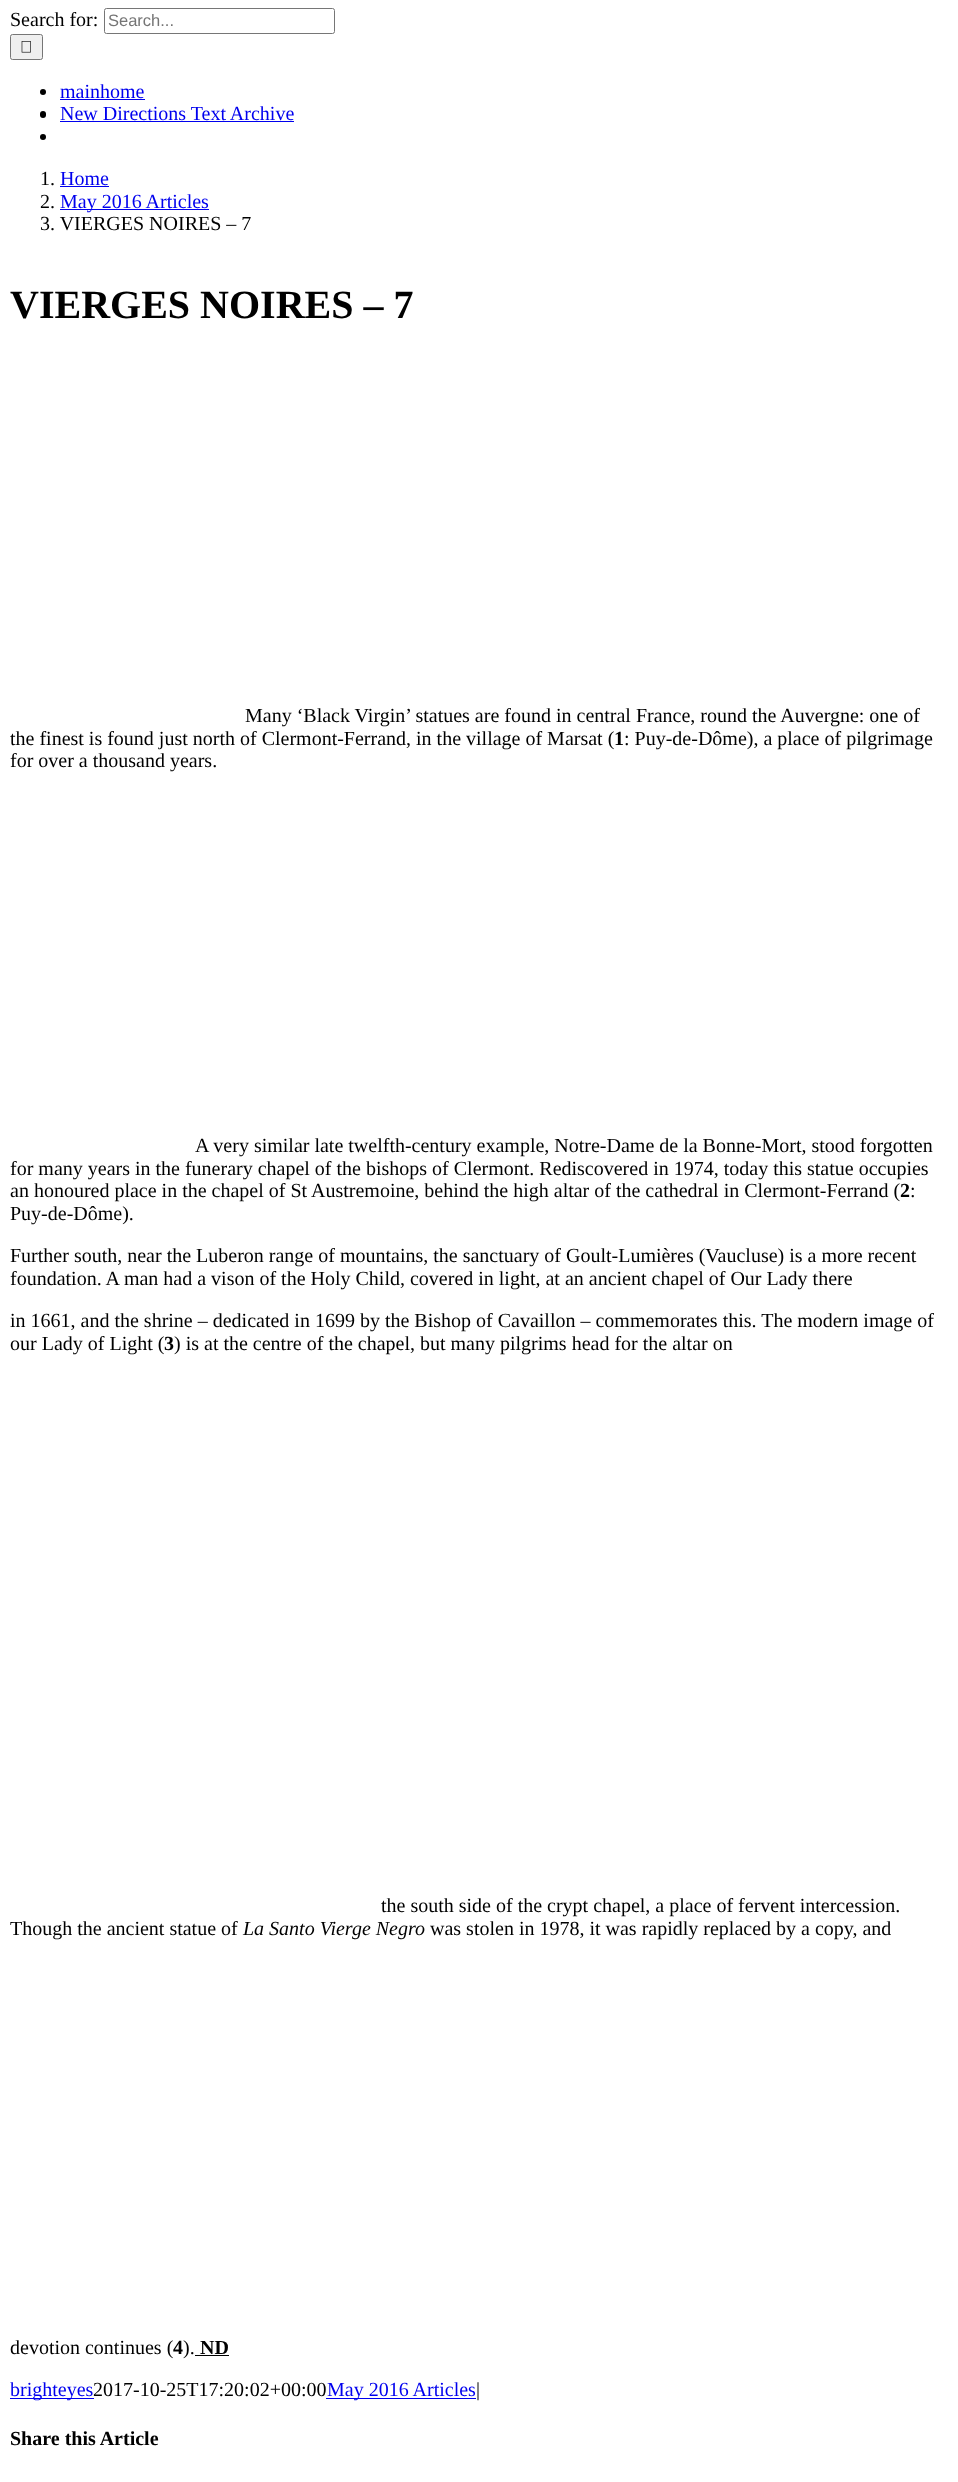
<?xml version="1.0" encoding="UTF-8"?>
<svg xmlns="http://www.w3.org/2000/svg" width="958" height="2482">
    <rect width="100%" height="100%" fill="#FFFFFF"/>
    <text x="10" y="26" font-family="Liberation Serif" font-size="20" fill="#000000">Search for:</text>
    <rect x="104.5" y="8.5" width="230" height="25" rx="2" fill="none" stroke="#767676"/>
    <text x="108" y="26" font-family="Liberation Sans" font-size="16.5" fill="#757575">Search...</text>
    <rect x="10.5" y="34.5" width="32" height="25" rx="2" fill="#EFEFEF" stroke="#767676"/>
    <image x="21" y="41" width="10" height="12" href="img_01.png"/>
    <circle cx="43" cy="92" r="3" fill="#000000"/>
    <text x="60" y="98" font-family="Liberation Serif" font-size="20" fill="#0000EE">mainhome</text>
    <rect x="60" y="99" width="85" height="1" fill="#0000EE"/>
    <rect x="40" y="111" width="6" height="7" rx="3" fill="#000000"/>
    <text x="60" y="120" font-family="Liberation Serif" font-size="20" fill="#0000EE">New Directions Text Archive</text>
    <rect x="60" y="121" width="234" height="1" fill="#0000EE"/>
    <circle cx="43" cy="137" r="3" fill="#000000"/>
    <text x="40" y="185" font-family="Liberation Serif" font-size="20" fill="#000000">1.</text>
    <text x="60" y="185" font-family="Liberation Serif" font-size="20" fill="#0000EE">Home</text>
    <rect x="60" y="186" width="49" height="1" fill="#0000EE"/>
    <text x="40" y="208" font-family="Liberation Serif" font-size="20" fill="#000000">2.</text>
    <rect x="60" y="209" width="149" height="1" fill="#0000EE"/>
    <text x="60" y="208" font-family="Liberation Serif" font-size="20" fill="#0000EE">May 2016 Articles</text>
    <text x="40" y="230" font-family="Liberation Serif" font-size="20" fill="#000000">3. VIERGES NOIRES – 7</text>
    <text x="10" y="318" font-family="Liberation Serif" font-size="40" font-weight="700" fill="#000000">VIERGES NOIRES – 7</text>
    <text x="245" y="722" font-family="Liberation Serif" font-size="20" fill="#000000">Many ‘Black Virgin’ statues are found in central France, round the Auvergne: one of</text>
    <text x="10" y="745" font-family="Liberation Serif" font-size="20" fill="#000000">the finest is found just north of Clermont-Ferrand, in the village of Marsat (</text>
    <text x="614" y="745" font-family="Liberation Serif" font-size="20" font-weight="700" fill="#000000">1</text>
    <text x="624" y="745" font-family="Liberation Serif" font-size="20" fill="#000000">: Puy-de-Dôme), a place of pilgrimage</text>
    <text x="10" y="767" font-family="Liberation Serif" font-size="20" fill="#000000">for over a thousand years.</text>
    <text x="195" y="1152" font-family="Liberation Serif" font-size="20" fill="#000000">A very similar late twelfth-century example, Notre-Dame de la Bonne-Mort, stood forgotten</text>
    <text font-family="Liberation Serif" font-size="20" fill="#000000">
        <tspan x="10" y="1175">for many years in the funerary chapel of the bishops of Clermont. Rediscovered in 1974, today this statue occupies</tspan>
        <tspan x="10" y="1197">an honoured place in the chapel of St Austremoine, behind the high altar of the cathedral in Clermont-Ferrand (</tspan>
    </text>
    <text x="900" y="1197" font-family="Liberation Serif" font-size="20" font-weight="700" fill="#000000">2</text>
    <text x="910" y="1197" font-family="Liberation Serif" font-size="20" fill="#000000">:</text>
    <text x="10" y="1220" font-family="Liberation Serif" font-size="20" fill="#000000">Puy-de-Dôme).</text>
    <text font-family="Liberation Serif" font-size="20" fill="#000000">
        <tspan x="10" y="1262">Further south, near the Luberon range of mountains, the sanctuary of Goult-Lumières (Vaucluse) is a more recent</tspan>
        <tspan x="10" y="1285">foundation. A man had a vison of the Holy Child, covered in light, at an ancient chapel of Our Lady there</tspan>
    </text>
    <text font-family="Liberation Serif" font-size="20" fill="#000000">
        <tspan x="10" y="1327">in 1661, and the shrine – dedicated in 1699 by the Bishop of Cavaillon – commemorates this. The modern image of</tspan>
        <tspan x="10" y="1350">our Lady of Light (</tspan>
    </text>
    <text x="164" y="1350" font-family="Liberation Serif" font-size="20" font-weight="700" fill="#000000">3</text>
    <text x="174" y="1350" font-family="Liberation Serif" font-size="20" fill="#000000">) is at the centre of the chapel, but many pilgrims head for the altar on</text>
    <text x="381" y="1912" font-family="Liberation Serif" font-size="20" fill="#000000">the south side of the crypt chapel, a place of fervent intercession.</text>
    <text x="10" y="1935" font-family="Liberation Serif" font-size="20" fill="#000000">Though the ancient statue of</text>
    <text x="243" y="1935" font-family="Liberation Serif" font-size="20" font-style="italic" fill="#000000">La Santo Vierge Negro</text>
    <text x="430" y="1935" font-family="Liberation Serif" font-size="20" fill="#000000">was stolen in 1978, it was rapidly replaced by a copy, and</text>
    <text x="10" y="2354" font-family="Liberation Serif" font-size="20" fill="#000000">devotion continues (</text>
    <text x="173" y="2354" font-family="Liberation Serif" font-size="20" font-weight="700" fill="#000000">4</text>
    <text x="183" y="2354" font-family="Liberation Serif" font-size="20" fill="#000000">).</text>
    <text x="200" y="2354" font-family="Liberation Serif" font-size="20" font-weight="700" fill="#000000">ND</text>
    <rect x="195" y="2355" width="34" height="1" fill="#000000"/>
    <rect x="10" y="2398" width="84" height="1" fill="#0000EE"/>
    <text x="10" y="2396" font-family="Liberation Serif" font-size="20" fill="#0000EE">brighteyes</text>
    <text x="93" y="2396" font-family="Liberation Serif" font-size="20" fill="#000000">2017-10-25T17:20:02+00:00</text>
    <rect x="326" y="2398" width="150" height="1" fill="#0000EE"/>
    <text x="327" y="2396" font-family="Liberation Serif" font-size="20" fill="#0000EE">May 2016 Articles</text>
    <text x="476" y="2396" font-family="Liberation Serif" font-size="20" fill="#000000">|</text>
    <text x="10" y="2445" font-family="Liberation Serif" font-size="20" font-weight="700" fill="#000000">Share this Article</text>
</svg>
